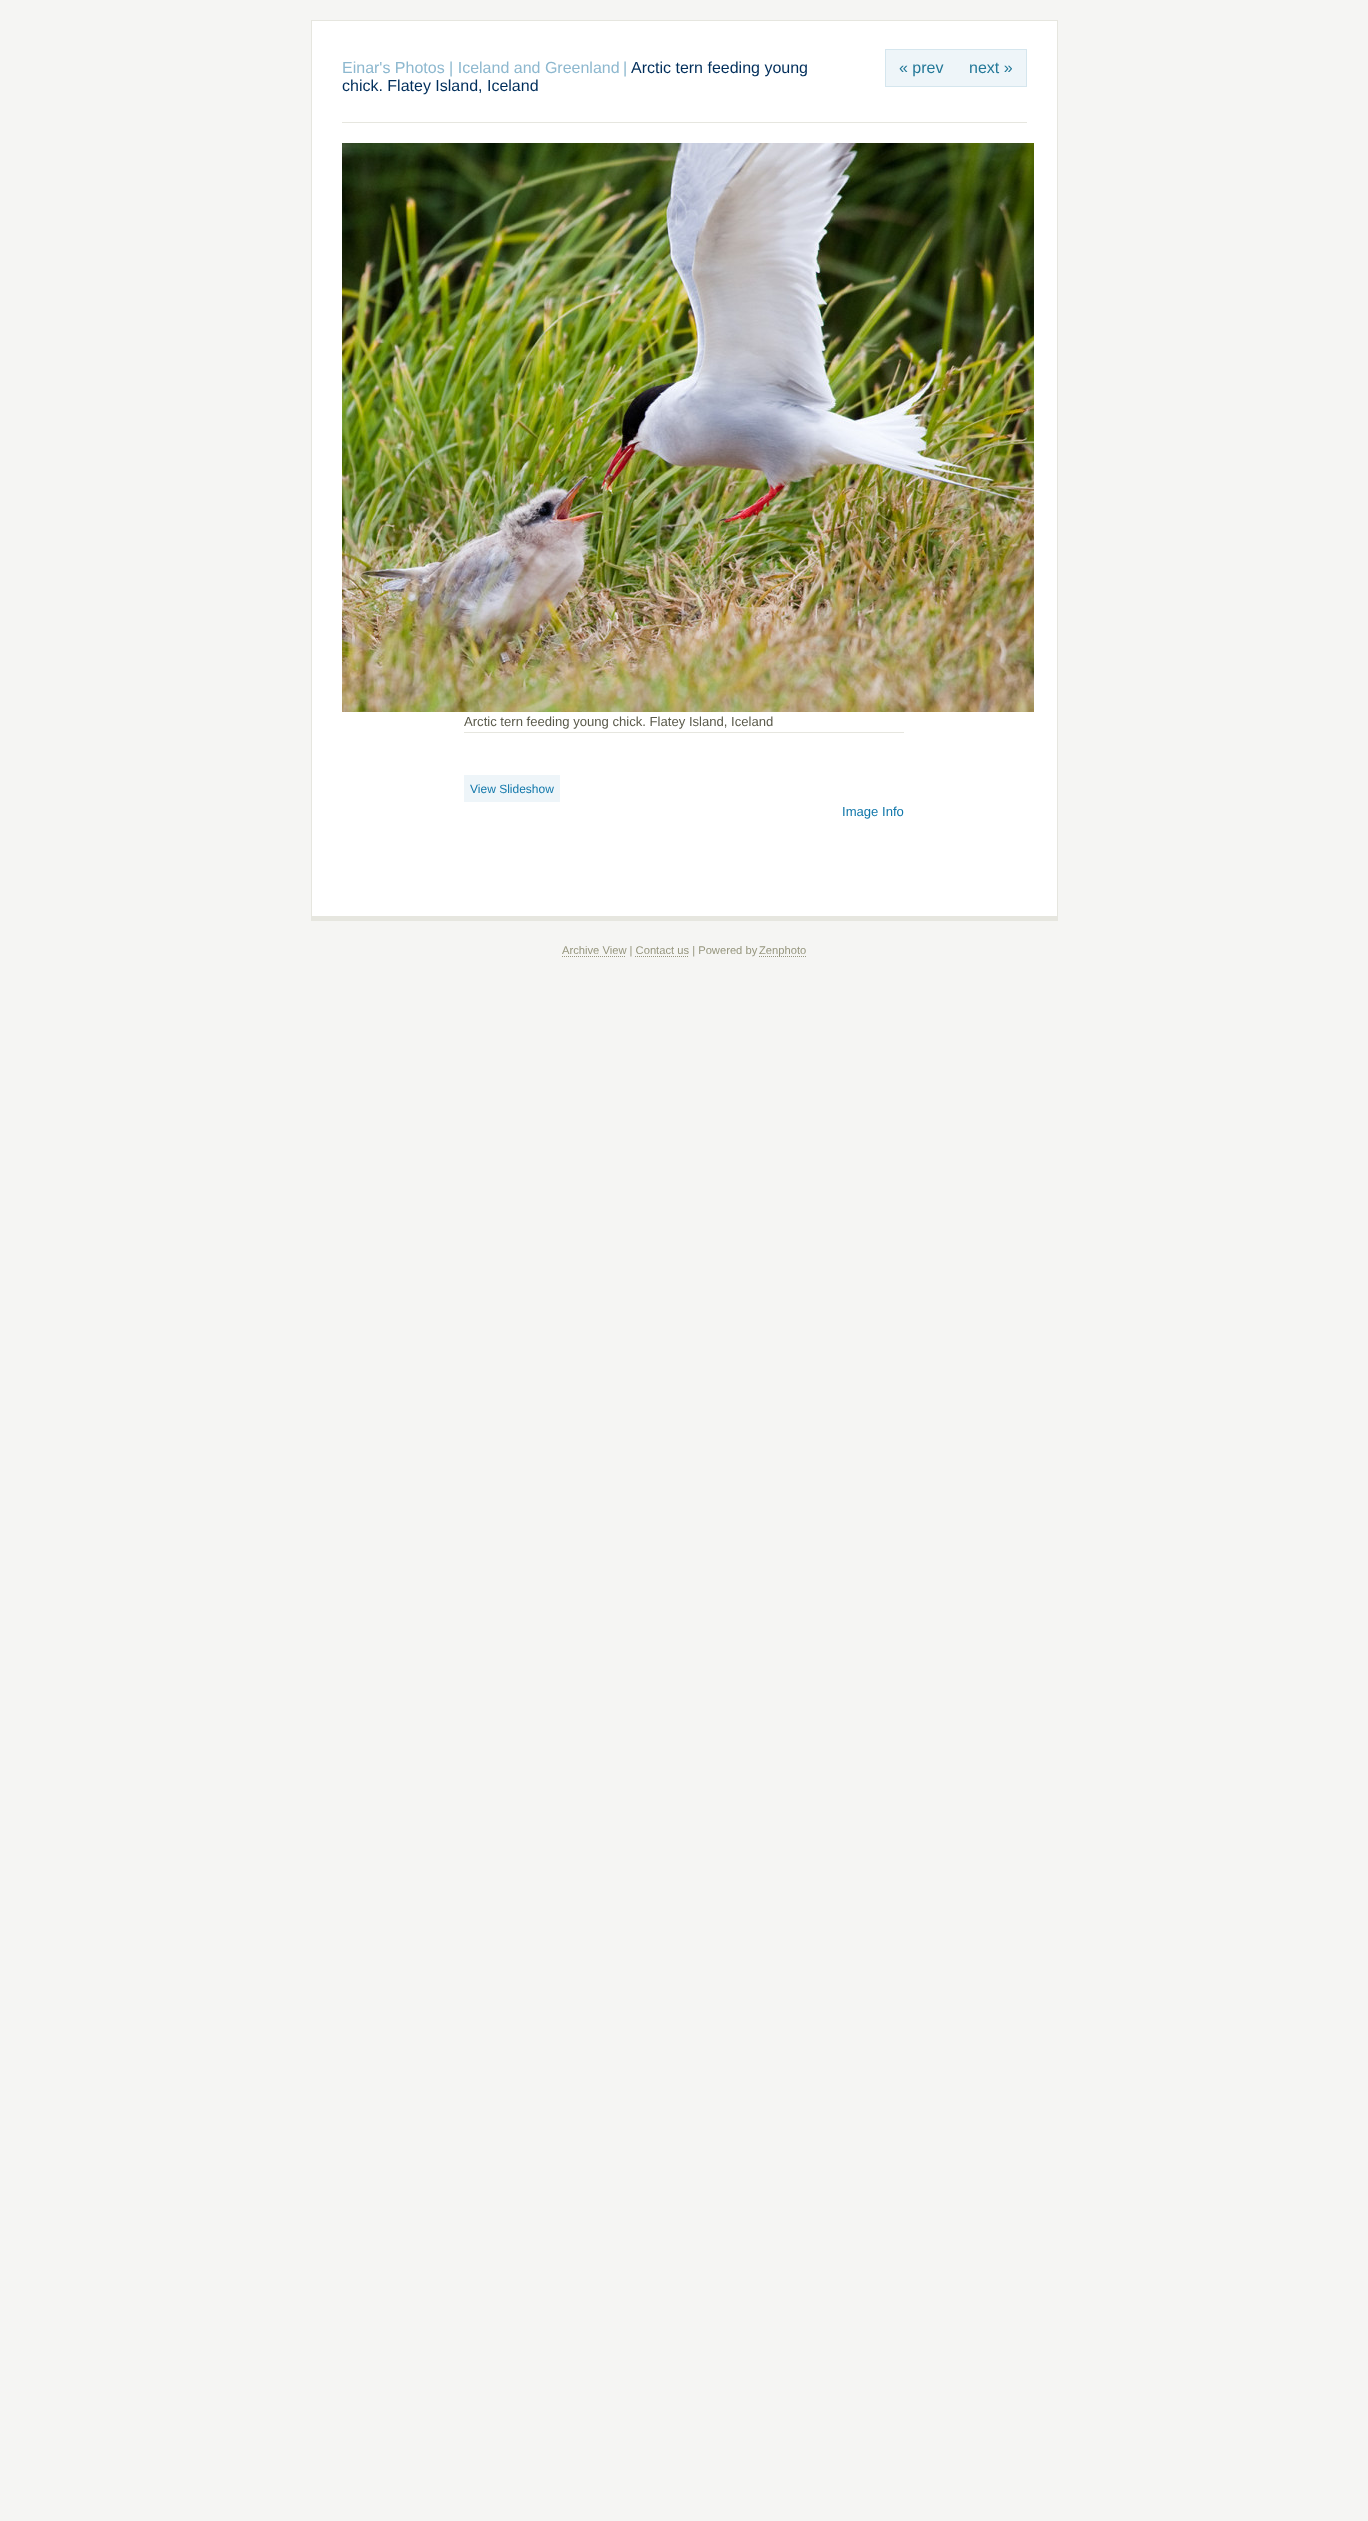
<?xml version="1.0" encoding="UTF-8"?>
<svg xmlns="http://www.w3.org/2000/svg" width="1368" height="2521">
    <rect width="100%" height="100%" fill="#F5F5F3"/>
    <rect x="312" y="21" width="745" height="895" fill="#FFFFFF"/>
    <rect x="311" y="20" width="747" height="1" fill="#E6E6DF"/>
    <rect x="1057" y="20" width="1" height="901" fill="#E6E6DF"/>
    <rect x="311" y="916" width="747" height="5" fill="#E6E6DF"/>
    <rect x="311" y="20" width="1" height="901" fill="#E6E6DF"/>
    <rect x="342" y="122" width="685" height="1" fill="#E6E6DF"/>
    <text x="342" y="73" font-family="Liberation Sans" font-size="16" fill="#8DB8CF">Einar's Photos | Iceland and Greenland</text>
    <text x="623" y="73" font-family="Liberation Sans" font-size="16" fill="#8DB8CF">|</text>
    <text x="631" y="73" font-family="Liberation Sans" font-size="16" fill="#002E5B">Arctic tern feeding young</text>
    <text x="342" y="91" font-family="Liberation Sans" font-size="16" fill="#002E5B">chick. Flatey Island, Iceland</text>
    <rect x="885.5" y="49.5" width="141" height="37" fill="#EEF5F9" stroke="#D5E6EE"/>
    <text x="899" y="73" font-family="Liberation Sans" font-size="16" fill="#237898">« prev</text>
    <text x="969" y="73" font-family="Liberation Sans" font-size="16" fill="#237898">next »</text>
    <image x="342" y="143" width="692" height="569" href="img_01.png"/>
    <text x="464" y="726" font-family="Liberation Sans" font-size="13.1" fill="#5A5A4B">Arctic tern feeding young chick. Flatey Island, Iceland</text>
    <rect x="464" y="732" width="440" height="1" fill="#E6E6DF"/>
    <rect x="464" y="775" width="96" height="27" fill="#EEF5F9"/>
    <text x="470" y="793" font-family="Liberation Sans" font-size="12" fill="#1177AA">View Slideshow</text>
    <text x="842" y="816" font-family="Liberation Sans" font-size="13.1" fill="#1177AA">Image Info</text>
    <path d="M 562 956.5 H 626" fill="none" stroke="#96967E" stroke-dasharray="1 1"/>
    <text x="562" y="954" font-family="Liberation Sans" font-size="11.2" fill="#96967E">Archive View | Contact us | Powered by</text>
    <path d="M 759 956.5 H 806" fill="none" stroke="#96967E" stroke-dasharray="1 1"/>
    <text x="759" y="954" font-family="Liberation Sans" font-size="11.2" fill="#96967E">Zenphoto</text>
    <path d="M 635 956.5 H 688" fill="none" stroke="#96967E" stroke-dasharray="1 1"/>
</svg>
